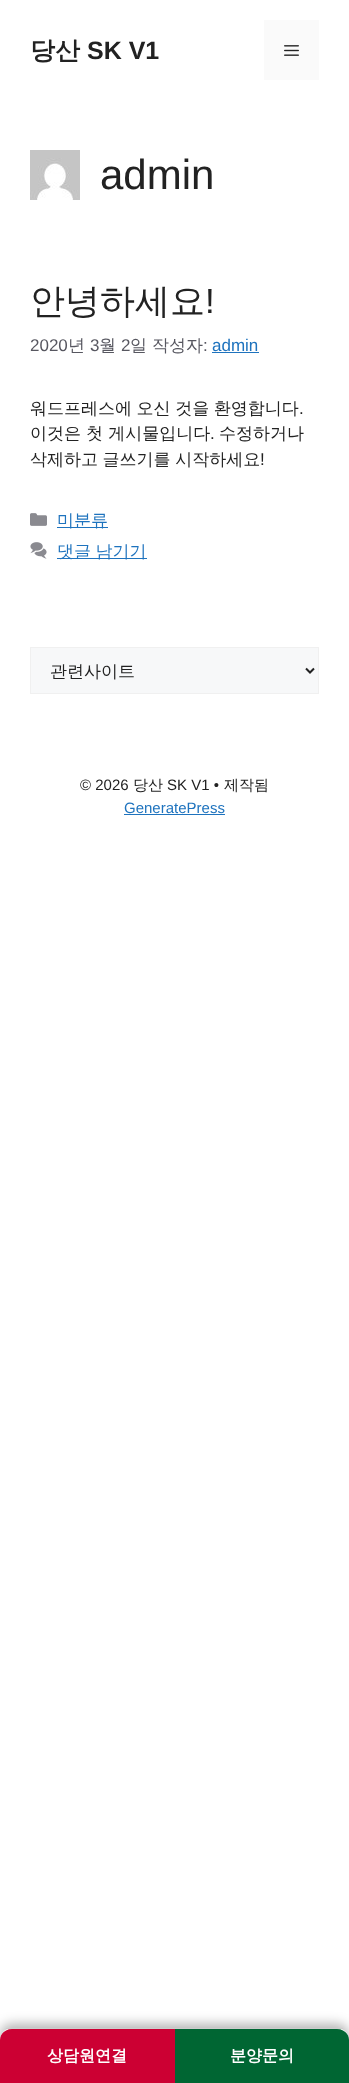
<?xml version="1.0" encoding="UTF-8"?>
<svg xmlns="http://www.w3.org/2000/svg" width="349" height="2083">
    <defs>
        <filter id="blur1" x="-50%" y="-200%" width="200%" height="500%"><feGaussianBlur stdDeviation="6"/></filter>
    </defs>
    <rect width="100%" height="100%" fill="#FFFFFF"/>
    <text x="30" y="59" font-family="WenQuanYi Zen Hei" font-size="25" font-weight="700" fill="#222222">당산</text>
    <text x="87" y="59" font-family="Liberation Sans" font-size="25" font-weight="700" fill="#222222">SK V1</text>
    <rect x="264" y="20" width="55" height="60" fill="#FAFAFA"/>
    <image x="284" y="45" width="15" height="11" href="img_01.png"/>
    <image x="30" y="150" width="50" height="50" href="img_02.png"/>
    <text x="100" y="189" font-family="Liberation Sans" font-size="42" fill="#222222">admin</text>
    <text x="30" y="313" font-family="WenQuanYi Zen Hei" font-size="35" font-weight="500" fill="#222222">안녕하세요</text>
    <text x="205" y="313" font-family="Liberation Sans" font-size="35" fill="#222222">!</text>
    <text x="30" y="351" font-family="Liberation Sans" font-size="17" fill="#575760">2020</text>
    <text x="68" y="351" font-family="WenQuanYi Zen Hei" font-size="17" font-weight="500" fill="#575760">년</text>
    <text x="90" y="351" font-family="Liberation Sans" font-size="17" fill="#575760">3</text>
    <text x="99" y="351" font-family="WenQuanYi Zen Hei" font-size="17" font-weight="500" fill="#575760">월</text>
    <text x="121" y="351" font-family="Liberation Sans" font-size="17" fill="#575760">2</text>
    <text x="130" y="351" font-family="WenQuanYi Zen Hei" font-size="17" font-weight="500" fill="#575760">일</text>
    <text x="152" y="351" font-family="WenQuanYi Zen Hei" font-size="17" font-weight="500" fill="#575760">작성자</text>
    <text x="203" y="351" font-family="Liberation Sans" font-size="17" fill="#575760">:</text>
    <text x="212" y="351" font-family="Liberation Sans" font-size="17" fill="#1E73BE">admin</text>
    <rect x="212" y="352" width="47" height="1" fill="#1E73BE"/>
    <text x="30" y="414" word-spacing="-0.5" font-family="WenQuanYi Zen Hei" font-size="17" font-weight="500" fill="#222222">워드프레스에 오신 것을 환영합니다</text>
    <text x="299" y="414" font-family="Liberation Sans" font-size="17" fill="#222222">.</text>
    <text x="30" y="439" font-family="WenQuanYi Zen Hei" font-size="17" font-weight="500" fill="#222222">이것은 첫 게시물입니다</text>
    <text x="210" y="439" font-family="Liberation Sans" font-size="17" fill="#222222">.</text>
    <text x="219" y="439" font-family="WenQuanYi Zen Hei" font-size="17" font-weight="500" fill="#222222">수정하거나</text>
    <text x="30" y="465" word-spacing="-0.5" font-family="WenQuanYi Zen Hei" font-size="17" font-weight="500" fill="#222222">삭제하고 글쓰기를 시작하세요</text>
    <text x="260" y="465" font-family="Liberation Sans" font-size="17" fill="#222222">!</text>
    <image x="30" y="513" width="17" height="13" href="img_03.png"/>
    <rect x="57" y="527" width="51" height="1" fill="#1E73BE"/>
    <text x="57" y="526" font-family="WenQuanYi Zen Hei" font-size="17" font-weight="500" fill="#1E73BE">미분류</text>
    <image x="30" y="542" width="17" height="17" href="img_04.png"/>
    <rect x="57" y="558" width="90" height="1" fill="#1E73BE"/>
    <text x="57" y="557" word-spacing="-0.5" font-family="WenQuanYi Zen Hei" font-size="17" font-weight="500" fill="#1E73BE">댓글 남기기</text>
    <rect x="30.5" y="647.5" width="288" height="46" fill="#F7F8F9" stroke="#F0F0F0"/>
    <path d="M 306 668.5 L 310 672.5 L 314 668.5" fill="none" stroke="#222222" stroke-width="2"/>
    <text x="50" y="677" font-family="WenQuanYi Zen Hei" font-size="17" font-weight="500" fill="#222222">관련사이트</text>
    <rect x="0" y="2024" width="349" height="55" rx="12" fill="#000000" fill-opacity="0.3" filter="url(#blur1)"/>
    <path d="M 12 2028 H 337 C 343.5 2028 349 2033.5 349 2040 V 2083 H 0 V 2040 C 0 2033.5 5.5 2028 12 2028 Z" fill="#FFFFFF"/>
    <rect x="6" y="2028" width="337" height="1" fill="#CCCCCC"/>
    <path d="M 12 2029 C 5 2029 0 2034 0 2040 V 2083 H 175 V 2029 Z" fill="#CC0033"/>
    <text x="47" y="2061" font-family="WenQuanYi Zen Hei" font-size="16" font-weight="700" fill="#FFFFFF">상담원연결</text>
    <path d="M 175 2029 V 2083 H 349 V 2040 C 349 2034 344 2029 337 2029 Z" fill="#006633"/>
    <text x="230" y="2061" font-family="WenQuanYi Zen Hei" font-size="16" font-weight="700" fill="#FFFFFF">분양문의</text>
    <text x="80" y="790" font-family="Liberation Sans" font-size="15" fill="#222222">© 2026</text>
    <text x="133" y="790" font-family="WenQuanYi Zen Hei" font-size="15" font-weight="500" fill="#222222">당산</text>
    <text x="167" y="790" font-family="Liberation Sans" font-size="15" fill="#222222">SK V1 •</text>
    <text x="224" y="790" font-family="WenQuanYi Zen Hei" font-size="15" font-weight="500" fill="#222222">제작됨</text>
    <text x="124" y="813" font-family="Liberation Sans" font-size="15" fill="#1E73BE">GeneratePress</text>
    <rect x="124" y="814" width="101" height="1" fill="#1E73BE"/>
</svg>
